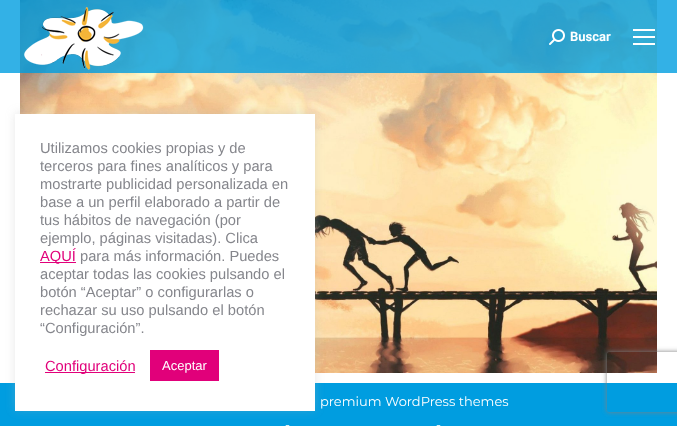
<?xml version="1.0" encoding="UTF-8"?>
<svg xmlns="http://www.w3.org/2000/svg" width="677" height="426">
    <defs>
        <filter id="blur1" x="-50%" y="-200%" width="200%" height="500%"><feGaussianBlur stdDeviation="5"/></filter>
        <clipPath id="clip1"><path d="M 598 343 H 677 V 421 H 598 Z M 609 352 H 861 C 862 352 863 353 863 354 V 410 C 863 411 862 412 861 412 H 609 C 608 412 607 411 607 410 V 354 C 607 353 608 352 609 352 Z" clip-rule="evenodd"/></clipPath>
        <filter id="blur2" x="-50%" y="-200%" width="200%" height="500%"><feGaussianBlur stdDeviation="2.5"/></filter>
    </defs>
    <rect width="100%" height="100%" fill="#FFFFFF"/>
    <image x="20" y="0" width="637" height="373" href="img_01.png"/>
    <rect x="0" y="383" width="677" height="43" fill="#009DE0"/>
    <rect x="15" y="113" width="300" height="297" fill="#ACABAB" fill-opacity="0.3" filter="url(#blur1)"/>
    <rect x="15" y="114" width="300" height="297" fill="#FFFFFF"/>
    <text font-family="Liberation Sans" font-size="14.7" fill="#85868C">
        <tspan x="40" y="153">Utilizamos cookies propias y de</tspan>
        <tspan x="40" y="171">terceros para fines analíticos y para</tspan>
        <tspan x="40" y="189">mostrarte publicidad personalizada en</tspan>
        <tspan x="40" y="207">base a un perfil elaborado a partir de</tspan>
        <tspan x="40" y="225">tus hábitos de navegación (por</tspan>
        <tspan x="40" y="243">ejemplo, páginas visitadas). Clica</tspan>
    </text>
    <rect x="40" y="262" width="36" height="1" fill="#E1007A"/>
    <text x="40" y="261" font-family="Liberation Sans" font-size="14.7" fill="#E1007A">AQUÍ</text>
    <text x="80" y="261" font-family="Liberation Sans" font-size="14.7" fill="#85868C">para más información. Puedes</text>
    <text font-family="Liberation Sans" font-size="14.7" fill="#85868C">
        <tspan x="40" y="279">aceptar todas las cookies pulsando el</tspan>
        <tspan x="40" y="297">botón “Aceptar” o configurarlas o</tspan>
        <tspan x="40" y="315">rechazar su uso pulsando el botón</tspan>
        <tspan x="40" y="333">“Configuración”.</tspan>
    </text>
    <rect x="45" y="372" width="90" height="1" fill="#E1007A"/>
    <text x="45" y="371" font-family="Liberation Sans" font-size="14.7" fill="#E1007A">Configuración</text>
    <rect x="150" y="350" width="69" height="31" fill="#E1007A"/>
    <text x="162" y="370" font-family="Liberation Sans" font-size="13" fill="#FFFFFF">Aceptar</text>
    <rect x="0" y="0" width="677" height="73" fill="#009DE0" fill-opacity="0.8"/>
    <image x="24" y="7" width="120" height="63" href="img_02.png"/>
    <image x="549" y="29" width="16" height="16" href="img_03.png"/>
    <text x="570" y="41" font-family="Roboto" font-size="13" font-weight="700" fill="#FFFFFF">Buscar</text>
    <rect x="633" y="29" width="22" height="2" fill="#FFFFFF"/>
    <rect x="633" y="36" width="22" height="2" fill="#FFFFFF"/>
    <rect x="633" y="43" width="22" height="2" fill="#FFFFFF"/>
    <text x="320" y="406" font-family="Montserrat" font-size="13" fill="#FFFFFF">premium WordPress themes</text>
    <text x="285" y="429" font-family="Montserrat" font-size="13" fill="#FFFFFF">-</text>
    <text x="436" y="429" font-family="Montserrat" font-size="13" fill="#FFFFFF">-</text>
    <g clip-path="url(#clip1)">
        <rect x="607" y="352" width="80" height="60" rx="2" fill="#808080" filter="url(#blur2)"/>
    </g>
</svg>
